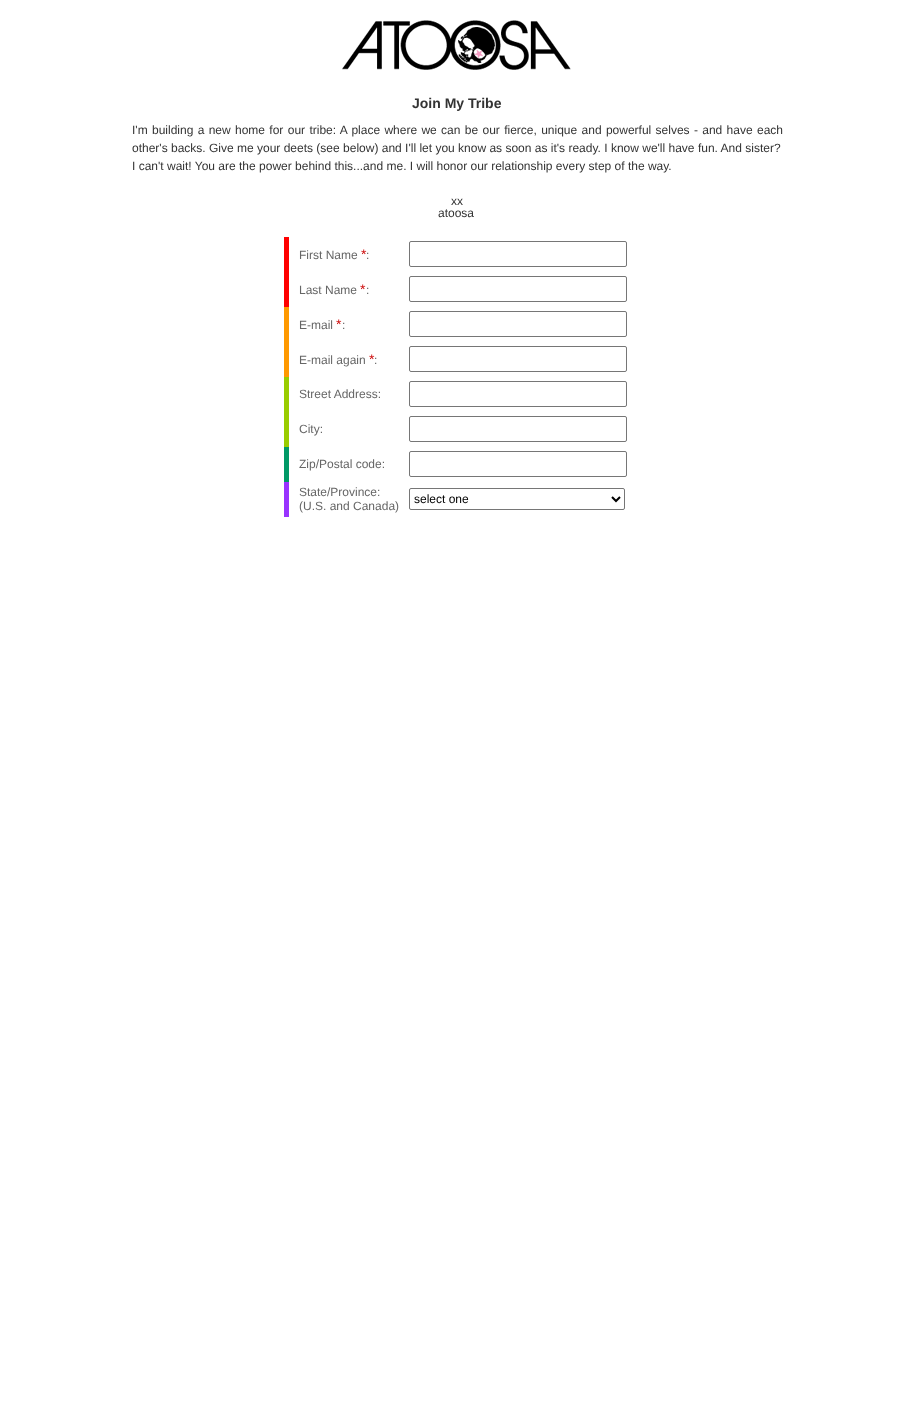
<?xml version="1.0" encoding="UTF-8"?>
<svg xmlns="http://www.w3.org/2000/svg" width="913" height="1418">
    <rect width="100%" height="100%" fill="#FFFFFF"/>
    <image x="342" y="20" width="229" height="50" href="img_01.png"/>
    <text x="412" y="108" font-family="Liberation Sans" font-size="14" font-weight="700" fill="#333333">Join My Tribe</text>
    <text font-family="Liberation Sans" font-size="12" fill="#333333">
        <tspan x="132" y="134" word-spacing="1">I'm building a new home for our tribe: A place where we can be our fierce, unique and powerful selves - and have each</tspan>
        <tspan x="132" y="152">other's backs. Give me your deets (see below) and I'll let you know as soon as it's ready. I know we'll have fun. And sister?</tspan>
        <tspan x="132" y="170">I can't wait! You are the power behind this...and me. I will honor our relationship every step of the way.</tspan>
    </text>
    <text x="451" y="205" font-family="Liberation Sans" font-size="12" fill="#333333">xx</text>
    <text x="438" y="217" font-family="Liberation Sans" font-size="12" fill="#333333">atoosa</text>
    <text x="299" y="259" font-family="Liberation Sans" font-size="12" fill="#666666">First Name</text>
    <text x="361" y="259" font-family="Liberation Sans" font-size="14" fill="#CC0000">*</text>
    <text x="366" y="259" font-family="Liberation Sans" font-size="12" fill="#666666">:</text>
    <rect x="409.5" y="241.5" width="217" height="25" rx="1.5" fill="none" stroke="#767676"/>
    <rect x="284" y="237" width="5" height="70" fill="#FF0000"/>
    <text x="299" y="294" font-family="Liberation Sans" font-size="12" fill="#666666">Last Name</text>
    <text x="360" y="294" font-family="Liberation Sans" font-size="14" fill="#CC0000">*</text>
    <text x="366" y="294" font-family="Liberation Sans" font-size="12" fill="#666666">:</text>
    <rect x="409.5" y="276.5" width="217" height="25" rx="1.5" fill="none" stroke="#767676"/>
    <text x="299" y="329" font-family="Liberation Sans" font-size="12" fill="#666666">E-mail</text>
    <text x="336" y="329" font-family="Liberation Sans" font-size="14" fill="#CC0000">*</text>
    <text x="342" y="329" font-family="Liberation Sans" font-size="12" fill="#666666">:</text>
    <rect x="409.5" y="311.5" width="217" height="25" rx="1.5" fill="none" stroke="#767676"/>
    <rect x="284" y="307" width="5" height="70" fill="#FF9900"/>
    <text x="299" y="364" font-family="Liberation Sans" font-size="12" fill="#666666">E-mail again</text>
    <text x="369" y="364" font-family="Liberation Sans" font-size="14" fill="#CC0000">*</text>
    <text x="374" y="364" font-family="Liberation Sans" font-size="12" fill="#666666">:</text>
    <rect x="409.5" y="346.5" width="217" height="25" rx="1.5" fill="none" stroke="#767676"/>
    <text x="299" y="398" font-family="Liberation Sans" font-size="12" fill="#666666">Street Address:</text>
    <rect x="409.5" y="381.5" width="217" height="25" rx="1.5" fill="none" stroke="#767676"/>
    <rect x="284" y="377" width="5" height="70" fill="#99CC00"/>
    <text x="299" y="433" font-family="Liberation Sans" font-size="12" fill="#666666">City:</text>
    <rect x="409.5" y="416.5" width="217" height="25" rx="1.5" fill="none" stroke="#767676"/>
    <rect x="284" y="447" width="5" height="35" fill="#009966"/>
    <text x="299" y="468" font-family="Liberation Sans" font-size="12" fill="#666666">Zip/Postal code:</text>
    <rect x="409.5" y="451.5" width="217" height="25" rx="1.5" fill="none" stroke="#767676"/>
    <rect x="284" y="482" width="5" height="35" fill="#9933FF"/>
    <text font-family="Liberation Sans" font-size="12" fill="#666666">
        <tspan x="299" y="496">State/Province:</tspan>
        <tspan x="299" y="510">(U.S. and Canada)</tspan>
    </text>
    <rect x="409.5" y="488.5" width="215" height="21" rx="1.5" fill="none" stroke="#767676"/>
    <path d="M 612 497 L 616 501 L 620 497" fill="none" stroke="#000000" stroke-width="2"/>
    <text x="414" y="503" font-family="Liberation Sans" font-size="12" fill="#000000">select one</text>
</svg>
